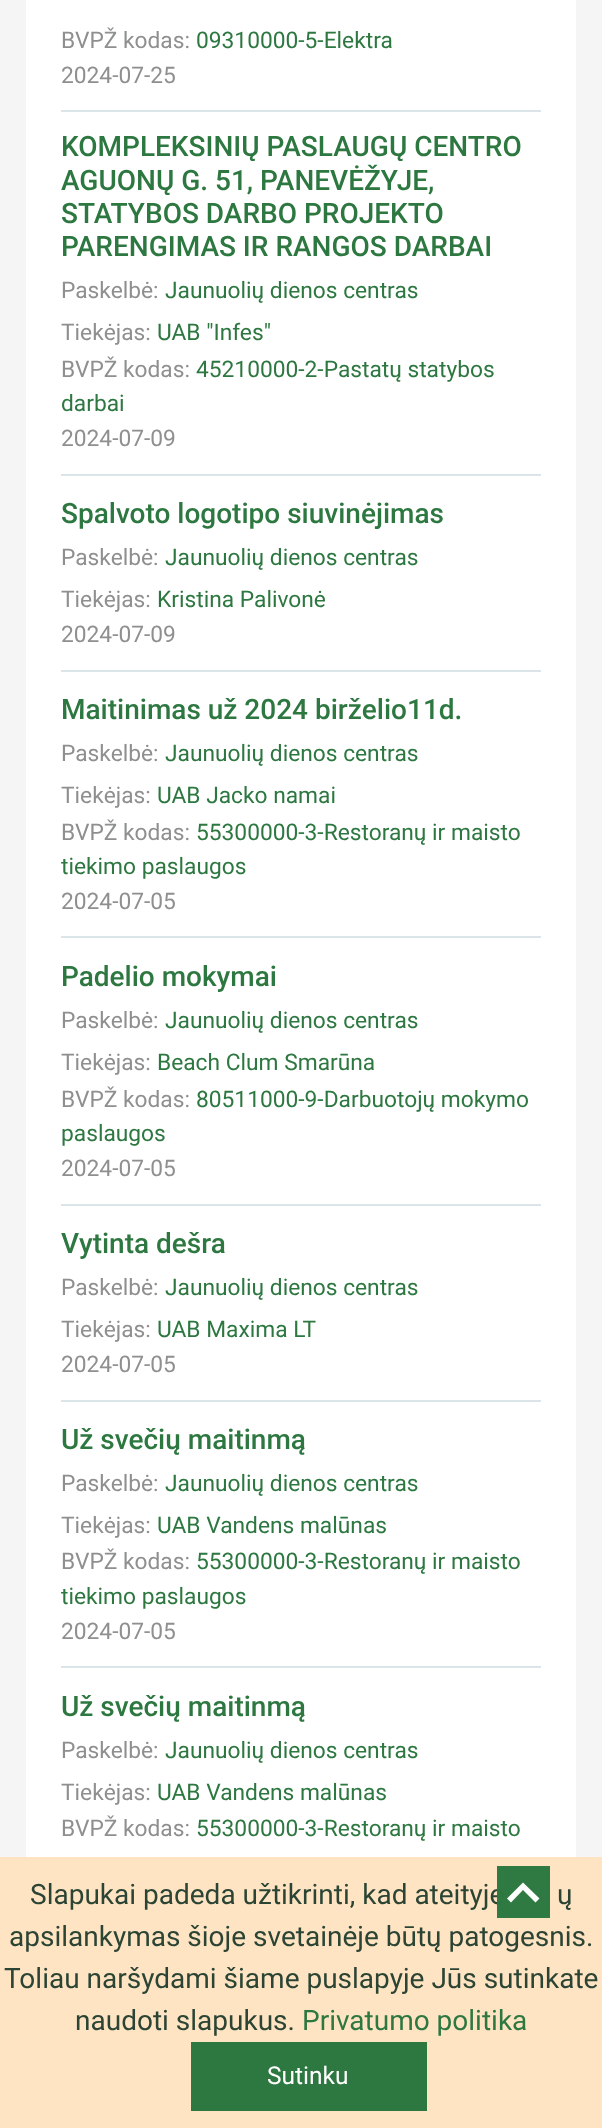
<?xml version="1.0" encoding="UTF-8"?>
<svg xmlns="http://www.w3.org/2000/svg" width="602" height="2128">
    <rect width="100%" height="100%" fill="#F5F5F5"/>
    <rect x="26" y="0" width="550" height="1857" fill="#FFFFFF"/>
    <rect x="61" y="110" width="480" height="2" fill="#DBE5E9"/>
    <text x="61" y="48" font-family="Roboto" font-size="22.75" fill="#8D908E">BVPŽ kodas:</text>
    <text x="196" y="48" font-family="Roboto" font-size="22.75" fill="#2D7740">09310000-5-Elektra</text>
    <text x="61" y="83" font-family="Roboto" font-size="22.75" fill="#8D908E">2024-07-25</text>
    <rect x="61" y="474" width="480" height="2" fill="#DBE5E9"/>
    <text font-family="Roboto" font-size="28" font-weight="500" fill="#2D7740">
        <tspan x="61" y="156">KOMPLEKSINIŲ PASLAUGŲ CENTRO</tspan>
        <tspan x="61" y="190">AGUONŲ G. 51, PANEVĖŽYJE,</tspan>
        <tspan x="61" y="223">STATYBOS DARBO PROJEKTO</tspan>
        <tspan x="61" y="256">PARENGIMAS IR RANGOS DARBAI</tspan>
    </text>
    <text x="61" y="298" font-family="Roboto" font-size="22.75" fill="#8D908E">Paskelbė:</text>
    <text x="165" y="298" font-family="Roboto" font-size="22.75" fill="#2D7740">Jaunuolių dienos centras</text>
    <text x="61" y="340" font-family="Roboto" font-size="22.75" fill="#8D908E">Tiekėjas:</text>
    <text x="157" y="340" font-family="Roboto" font-size="22.75" fill="#2D7740">UAB "Infes"</text>
    <text x="61" y="377" font-family="Roboto" font-size="22.75" fill="#8D908E">BVPŽ kodas:</text>
    <text x="196" y="377" font-family="Roboto" font-size="22.75" fill="#2D7740">45210000-2-Pastatų statybos</text>
    <text x="61" y="411" font-family="Roboto" font-size="22.75" fill="#2D7740">darbai</text>
    <text x="61" y="446" font-family="Roboto" font-size="22.75" fill="#8D908E">2024-07-09</text>
    <rect x="61" y="670" width="480" height="2" fill="#DBE5E9"/>
    <text x="61" y="523" font-family="Roboto" font-size="28" font-weight="500" fill="#2D7740">Spalvoto logotipo siuvinėjimas</text>
    <text x="61" y="565" font-family="Roboto" font-size="22.75" fill="#8D908E">Paskelbė:</text>
    <text x="165" y="565" font-family="Roboto" font-size="22.75" fill="#2D7740">Jaunuolių dienos centras</text>
    <text x="61" y="607" font-family="Roboto" font-size="22.75" fill="#8D908E">Tiekėjas:</text>
    <text x="157" y="607" font-family="Roboto" font-size="22.75" fill="#2D7740">Kristina Palivonė</text>
    <text x="61" y="642" font-family="Roboto" font-size="22.75" fill="#8D908E">2024-07-09</text>
    <rect x="61" y="936" width="480" height="2" fill="#DBE5E9"/>
    <text x="61" y="719" font-family="Roboto" font-size="28" font-weight="500" fill="#2D7740">Maitinimas už 2024 birželio11d.</text>
    <text x="61" y="761" font-family="Roboto" font-size="22.75" fill="#8D908E">Paskelbė:</text>
    <text x="165" y="761" font-family="Roboto" font-size="22.75" fill="#2D7740">Jaunuolių dienos centras</text>
    <text x="61" y="803" font-family="Roboto" font-size="22.75" fill="#8D908E">Tiekėjas:</text>
    <text x="157" y="803" font-family="Roboto" font-size="22.75" fill="#2D7740">UAB Jacko namai</text>
    <text x="61" y="840" font-family="Roboto" font-size="22.75" fill="#8D908E">BVPŽ kodas:</text>
    <text x="196" y="840" font-family="Roboto" font-size="22.75" fill="#2D7740">55300000-3-Restoranų ir maisto</text>
    <text x="61" y="874" font-family="Roboto" font-size="22.75" fill="#2D7740">tiekimo paslaugos</text>
    <text x="61" y="909" font-family="Roboto" font-size="22.75" fill="#8D908E">2024-07-05</text>
    <rect x="61" y="1204" width="480" height="2" fill="#DBE5E9"/>
    <text x="61" y="986" font-family="Roboto" font-size="28" font-weight="500" fill="#2D7740">Padelio mokymai</text>
    <text x="61" y="1028" font-family="Roboto" font-size="22.75" fill="#8D908E">Paskelbė:</text>
    <text x="165" y="1028" font-family="Roboto" font-size="22.75" fill="#2D7740">Jaunuolių dienos centras</text>
    <text x="61" y="1070" font-family="Roboto" font-size="22.75" fill="#8D908E">Tiekėjas:</text>
    <text x="157" y="1070" font-family="Roboto" font-size="22.75" fill="#2D7740">Beach Clum Smarūna</text>
    <text x="61" y="1107" font-family="Roboto" font-size="22.75" fill="#8D908E">BVPŽ kodas:</text>
    <text x="196" y="1107" font-family="Roboto" font-size="22.75" fill="#2D7740">80511000-9-Darbuotojų mokymo</text>
    <text x="61" y="1141" font-family="Roboto" font-size="22.75" fill="#2D7740">paslaugos</text>
    <text x="61" y="1176" font-family="Roboto" font-size="22.75" fill="#8D908E">2024-07-05</text>
    <rect x="61" y="1400" width="480" height="2" fill="#DBE5E9"/>
    <text x="61" y="1253" font-family="Roboto" font-size="28" font-weight="500" fill="#2D7740">Vytinta dešra</text>
    <text x="61" y="1295" font-family="Roboto" font-size="22.75" fill="#8D908E">Paskelbė:</text>
    <text x="165" y="1295" font-family="Roboto" font-size="22.75" fill="#2D7740">Jaunuolių dienos centras</text>
    <text x="61" y="1337" font-family="Roboto" font-size="22.75" fill="#8D908E">Tiekėjas:</text>
    <text x="157" y="1337" font-family="Roboto" font-size="22.75" fill="#2D7740">UAB Maxima LT</text>
    <text x="61" y="1372" font-family="Roboto" font-size="22.75" fill="#8D908E">2024-07-05</text>
    <rect x="61" y="1666" width="480" height="2" fill="#DBE5E9"/>
    <text x="61" y="1449" font-family="Roboto" font-size="28" font-weight="500" fill="#2D7740">Už svečių maitinmą</text>
    <text x="61" y="1491" font-family="Roboto" font-size="22.75" fill="#8D908E">Paskelbė:</text>
    <text x="165" y="1491" font-family="Roboto" font-size="22.75" fill="#2D7740">Jaunuolių dienos centras</text>
    <text x="61" y="1533" font-family="Roboto" font-size="22.75" fill="#8D908E">Tiekėjas:</text>
    <text x="157" y="1533" font-family="Roboto" font-size="22.75" fill="#2D7740">UAB Vandens malūnas</text>
    <text x="61" y="1569" font-family="Roboto" font-size="22.75" fill="#8D908E">BVPŽ kodas:</text>
    <text x="196" y="1569" font-family="Roboto" font-size="22.75" fill="#2D7740">55300000-3-Restoranų ir maisto</text>
    <text x="61" y="1604" font-family="Roboto" font-size="22.75" fill="#2D7740">tiekimo paslaugos</text>
    <text x="61" y="1639" font-family="Roboto" font-size="22.75" fill="#8D908E">2024-07-05</text>
    <text x="61" y="1716" font-family="Roboto" font-size="28" font-weight="500" fill="#2D7740">Už svečių maitinmą</text>
    <text x="61" y="1758" font-family="Roboto" font-size="22.75" fill="#8D908E">Paskelbė:</text>
    <text x="165" y="1758" font-family="Roboto" font-size="22.75" fill="#2D7740">Jaunuolių dienos centras</text>
    <text x="61" y="1800" font-family="Roboto" font-size="22.75" fill="#8D908E">Tiekėjas:</text>
    <text x="157" y="1800" font-family="Roboto" font-size="22.75" fill="#2D7740">UAB Vandens malūnas</text>
    <text x="61" y="1836" font-family="Roboto" font-size="22.75" fill="#8D908E">BVPŽ kodas:</text>
    <text x="196" y="1836" font-family="Roboto" font-size="22.75" fill="#2D7740">55300000-3-Restoranų ir maisto</text>
    <rect x="0" y="1857" width="602" height="271" fill="#FFE4C4"/>
    <text x="30" y="1904" font-family="Roboto" font-size="28" fill="#2B4433">Slapukai padeda užtikrinti, kad ateityje</text>
    <rect x="497" y="1866" width="53" height="52" fill="#2D7740" fill-opacity="0.99"/>
    <path d="M 535.5 1902.5 L 523 1890 L 511 1902.5 L 507 1898.5 L 523 1882.5 L 539.5 1898.5 Z" fill="#FEFEFE" fill-rule="evenodd"/>
    <text x="557" y="1904" font-family="Roboto" font-size="28" fill="#2B4433">ų</text>
    <text x="9" y="1946" font-family="Roboto" font-size="28" fill="#2B4433">apsilankymas šioje svetainėje būtų patogesnis.</text>
    <text x="4" y="1988" font-family="Roboto" font-size="28" fill="#2B4433">Toliau naršydami šiame puslapyje Jūs sutinkate</text>
    <text x="75" y="2030" font-family="Roboto" font-size="28" fill="#2B4433">naudoti slapukus.</text>
    <text x="302" y="2030" font-family="Roboto" font-size="28" fill="#2D7740">Privatumo politika</text>
    <rect x="191" y="2042" width="236" height="69" fill="#2D7740"/>
    <text x="267" y="2084" font-family="Roboto" font-size="24.5" fill="#FFFFFF">Sutinku</text>
</svg>
